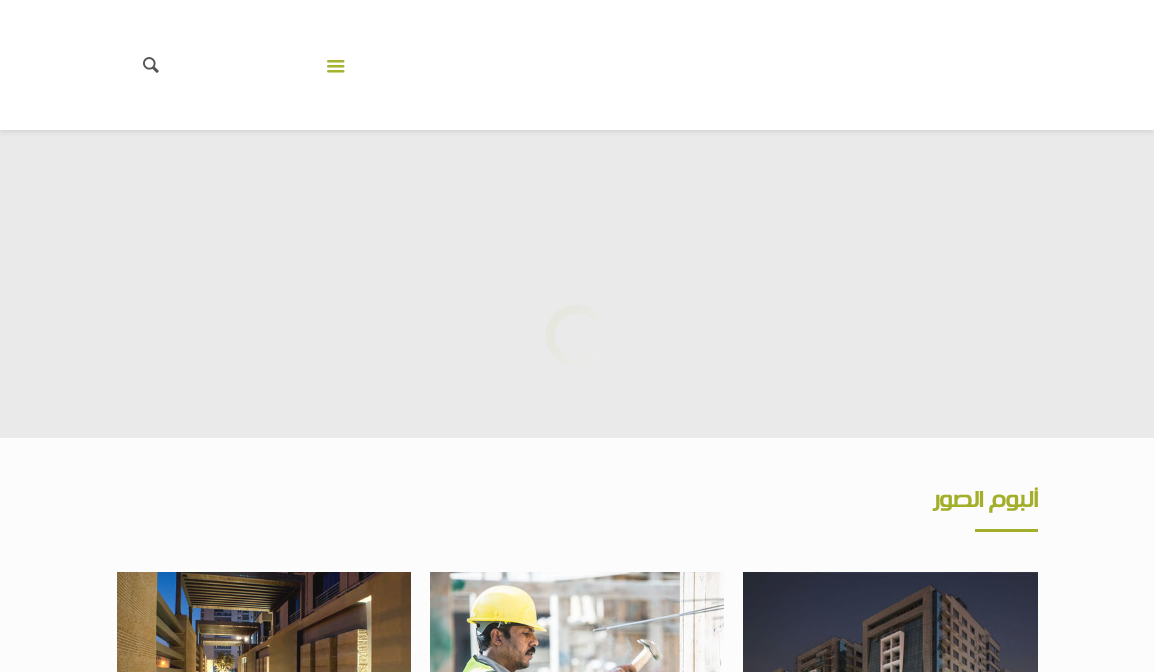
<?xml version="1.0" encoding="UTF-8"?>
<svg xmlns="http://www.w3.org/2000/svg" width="1154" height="672">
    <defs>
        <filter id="blur1" x="-50%" y="-200%" width="200%" height="500%"><feGaussianBlur stdDeviation="2.5"/></filter>
    </defs>
    <rect width="100%" height="100%" fill="#FCFCFC"/>
    <rect x="0" y="130" width="1154" height="308" fill="#EAEAEA"/>
    <image x="545" y="304" width="53" height="60" href="img_01.png"/>
    <rect x="0" y="2" width="1154" height="130" fill="#161616" fill-opacity="0.1" filter="url(#blur1)"/>
    <rect x="0" y="0" width="1154" height="130" fill="#FFFFFF"/>
    <image x="327" y="60" width="18" height="13" href="img_02.png"/>
    <image x="143" y="57" width="16" height="16" href="img_03.png"/>
    <text x="1038" y="507" font-family="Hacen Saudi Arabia" font-size="22" font-weight="700" direction="rtl" fill="#A3AF2B">ألبوم الصور</text>
    <rect x="975" y="529" width="63" height="3" fill="#A3AF2B"/>
    <image x="743" y="572" width="295" height="100" href="img_04.png"/>
    <image x="430" y="572" width="294" height="100" href="img_05.png"/>
    <image x="117" y="572" width="294" height="100" href="img_06.png"/>
</svg>
